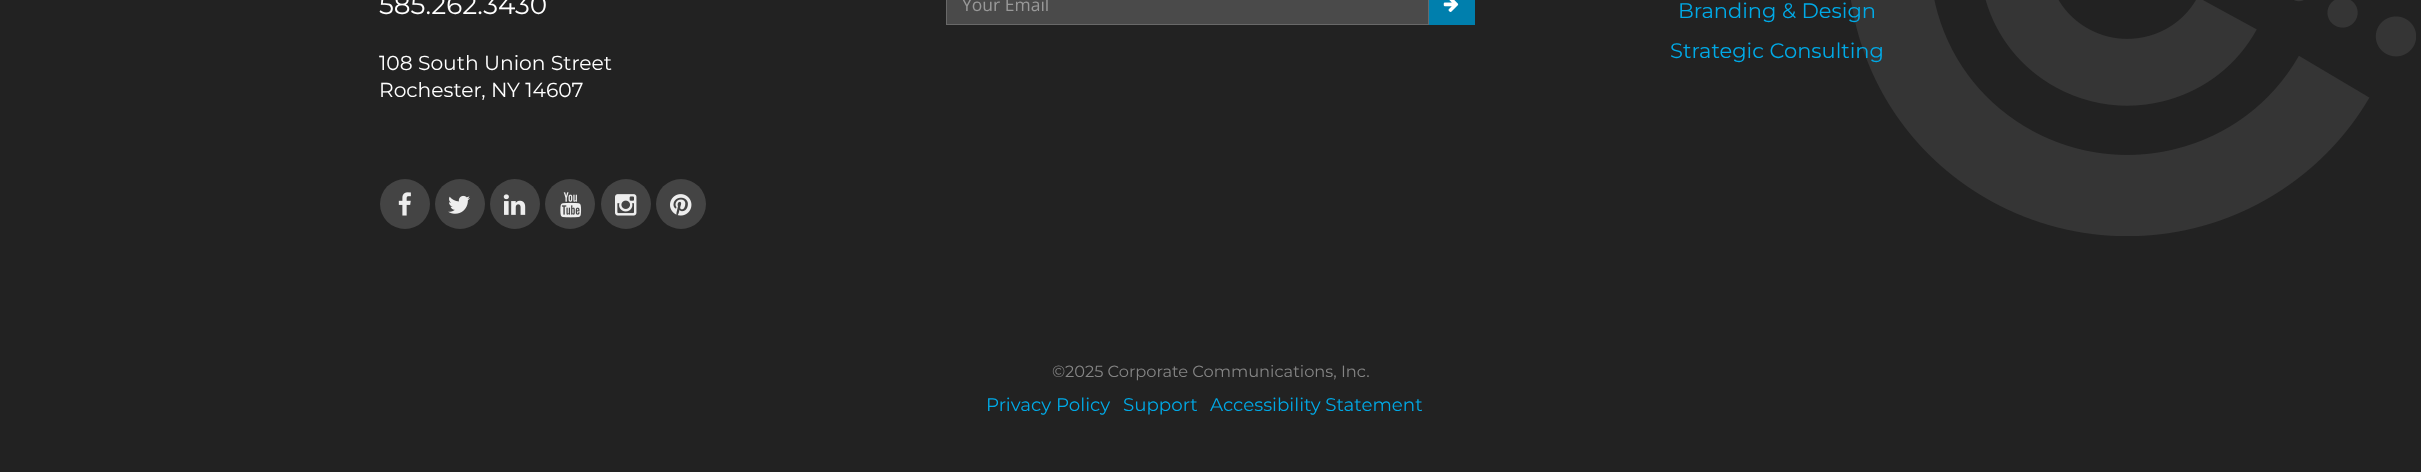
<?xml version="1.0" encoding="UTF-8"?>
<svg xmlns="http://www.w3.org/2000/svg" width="2421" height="472">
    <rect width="100%" height="100%" fill="#222222"/>
    <image x="1851" y="0" width="565" height="236" href="img_01.png"/>
    <text x="379" y="14" font-family="Montserrat" font-size="26.25" fill="#FFFFFF">585.262.3430</text>
    <text font-family="Montserrat" font-size="20.25" fill="#FFFFFF">
        <tspan x="379" y="70">108 South Union Street</tspan>
        <tspan x="379" y="97">Rochester, NY 14607</tspan>
    </text>
    <circle cx="405" cy="204" r="25" fill="#444444"/>
    <image x="398" y="192" width="13" height="24" href="img_02.png"/>
    <circle cx="460" cy="204" r="25" fill="#444444"/>
    <image x="448" y="195" width="22" height="19" href="img_03.png"/>
    <circle cx="515" cy="204" r="25" fill="#444444"/>
    <image x="503" y="194" width="23" height="21" href="img_04.png"/>
    <circle cx="570" cy="204" r="25" fill="#444444"/>
    <image x="560" y="192" width="22" height="26" href="img_05.png"/>
    <circle cx="626" cy="204" r="25" fill="#444444"/>
    <image x="615" y="194" width="22" height="22" href="img_06.png"/>
    <circle cx="681" cy="204" r="25" fill="#444444"/>
    <image x="670" y="194" width="22" height="22" href="img_07.png"/>
    <rect x="946.5" y="-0.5" width="482" height="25" fill="#4A4A4A" stroke="#696969"/>
    <text x="962" y="11" font-family="Open Sans" font-size="17.5" fill="#999999">Your Email</text>
    <rect x="1429" y="0" width="46" height="25" fill="#007FAD"/>
    <image x="1443" y="0" width="16" height="12" href="img_08.png"/>
    <text x="1678" y="18" font-family="Montserrat" font-size="21" fill="#00AAE7">Branding &amp; Design</text>
    <text x="1670" y="58" font-family="Montserrat" font-size="21" fill="#00AAE7">Strategic Consulting</text>
    <text x="1052" y="377" font-family="Montserrat" font-size="16.25" fill="#858585">©2025 Corporate Communications, Inc.</text>
    <text x="986" y="411" font-family="Montserrat" font-size="18.25" fill="#00AAE7">Privacy Policy</text>
    <text x="1123" y="411" font-family="Montserrat" font-size="18.25" fill="#00AAE7">Support</text>
    <text x="1210" y="411" font-family="Montserrat" font-size="18.25" fill="#00AAE7">Accessibility Statement</text>
</svg>
